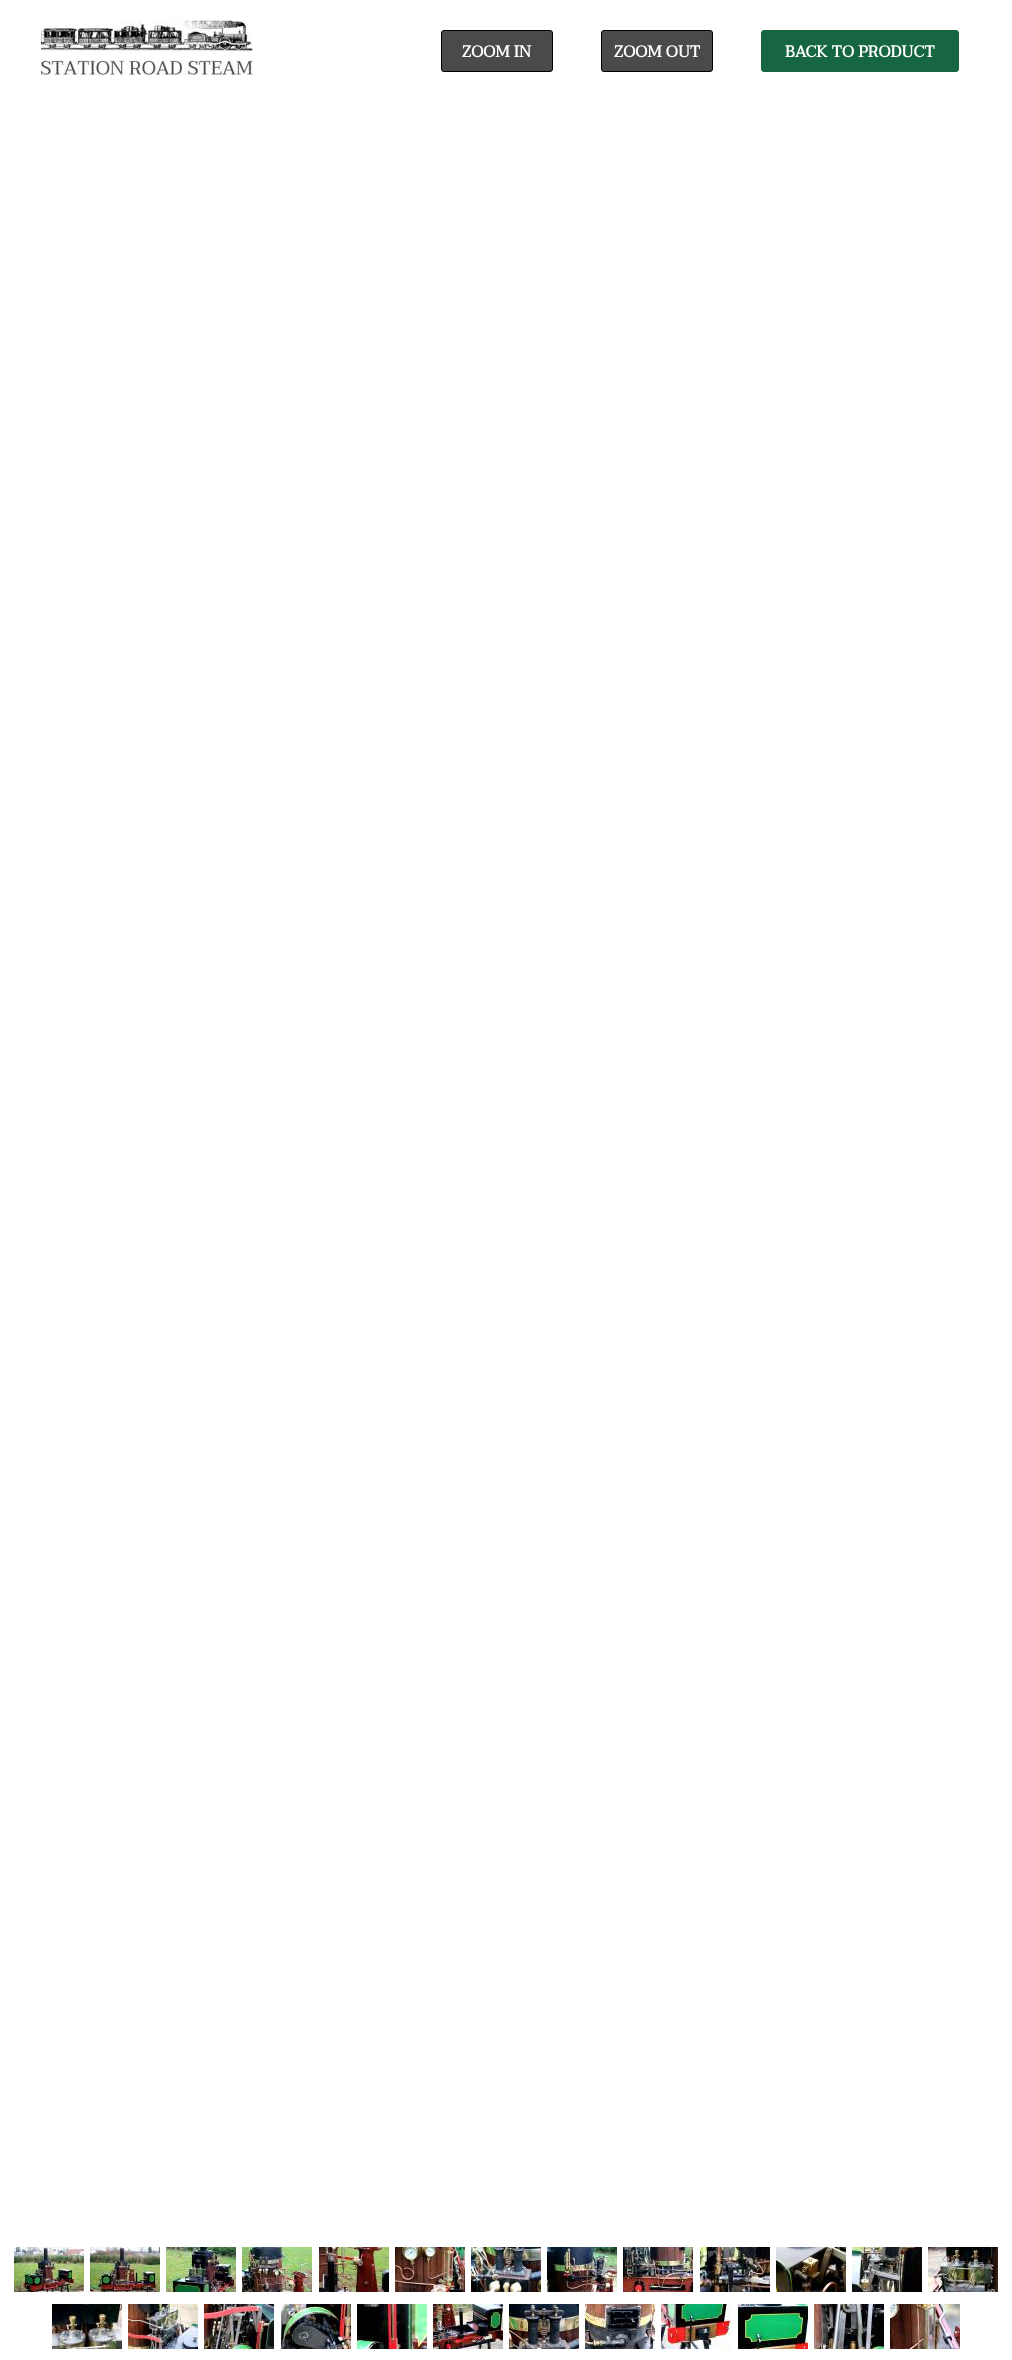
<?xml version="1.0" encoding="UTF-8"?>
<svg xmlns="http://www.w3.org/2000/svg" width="1012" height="2360">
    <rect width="100%" height="100%" fill="#FFFFFF"/>
    <image x="41" y="20" width="212" height="55" href="img_01.png"/>
    <rect x="441.5" y="30.5" width="111" height="41" rx="2.5" fill="#4A4A4A" stroke="#000000"/>
    <text x="462" y="57" font-family="Taviraj" font-size="16" font-weight="700" fill="#FFFFFF">ZOOM IN</text>
    <rect x="601.5" y="30.5" width="111" height="41" rx="2.5" fill="#4A4A4A" stroke="#000000"/>
    <text x="614" y="57" font-family="Taviraj" font-size="16" font-weight="700" fill="#FFFFFF">ZOOM OUT</text>
    <rect x="761.5" y="30.5" width="197" height="41" rx="2.5" fill="#166641" stroke="#166641"/>
    <text x="785" y="57" font-family="Taviraj" font-size="16" font-weight="700" fill="#FFFFFF">BACK TO PRODUCT</text>
    <image x="14" y="2247" width="70" height="45" href="img_02.png"/>
    <image x="90" y="2247" width="70" height="45" href="img_03.png"/>
    <image x="166" y="2247" width="70" height="45" href="img_04.png"/>
    <image x="242" y="2247" width="70" height="45" href="img_05.png"/>
    <image x="319" y="2247" width="70" height="45" href="img_06.png"/>
    <image x="395" y="2247" width="70" height="45" href="img_07.png"/>
    <image x="471" y="2247" width="70" height="45" href="img_08.png"/>
    <image x="547" y="2247" width="70" height="45" href="img_09.png"/>
    <image x="623" y="2247" width="70" height="45" href="img_10.png"/>
    <image x="700" y="2247" width="70" height="45" href="img_11.png"/>
    <image x="776" y="2247" width="70" height="45" href="img_12.png"/>
    <image x="852" y="2247" width="70" height="45" href="img_13.png"/>
    <image x="928" y="2247" width="70" height="45" href="img_14.png"/>
    <image x="52" y="2304" width="70" height="45" href="img_15.png"/>
    <image x="128" y="2304" width="70" height="45" href="img_16.png"/>
    <image x="204" y="2304" width="70" height="45" href="img_17.png"/>
    <image x="281" y="2304" width="70" height="45" href="img_18.png"/>
    <image x="357" y="2304" width="70" height="45" href="img_19.png"/>
    <image x="433" y="2304" width="70" height="45" href="img_20.png"/>
    <image x="509" y="2304" width="70" height="45" href="img_21.png"/>
    <image x="585" y="2304" width="70" height="45" href="img_22.png"/>
    <image x="661" y="2304" width="70" height="45" href="img_23.png"/>
    <image x="738" y="2304" width="70" height="45" href="img_24.png"/>
    <image x="814" y="2304" width="70" height="45" href="img_25.png"/>
    <image x="890" y="2304" width="70" height="45" href="img_26.png"/>
</svg>
